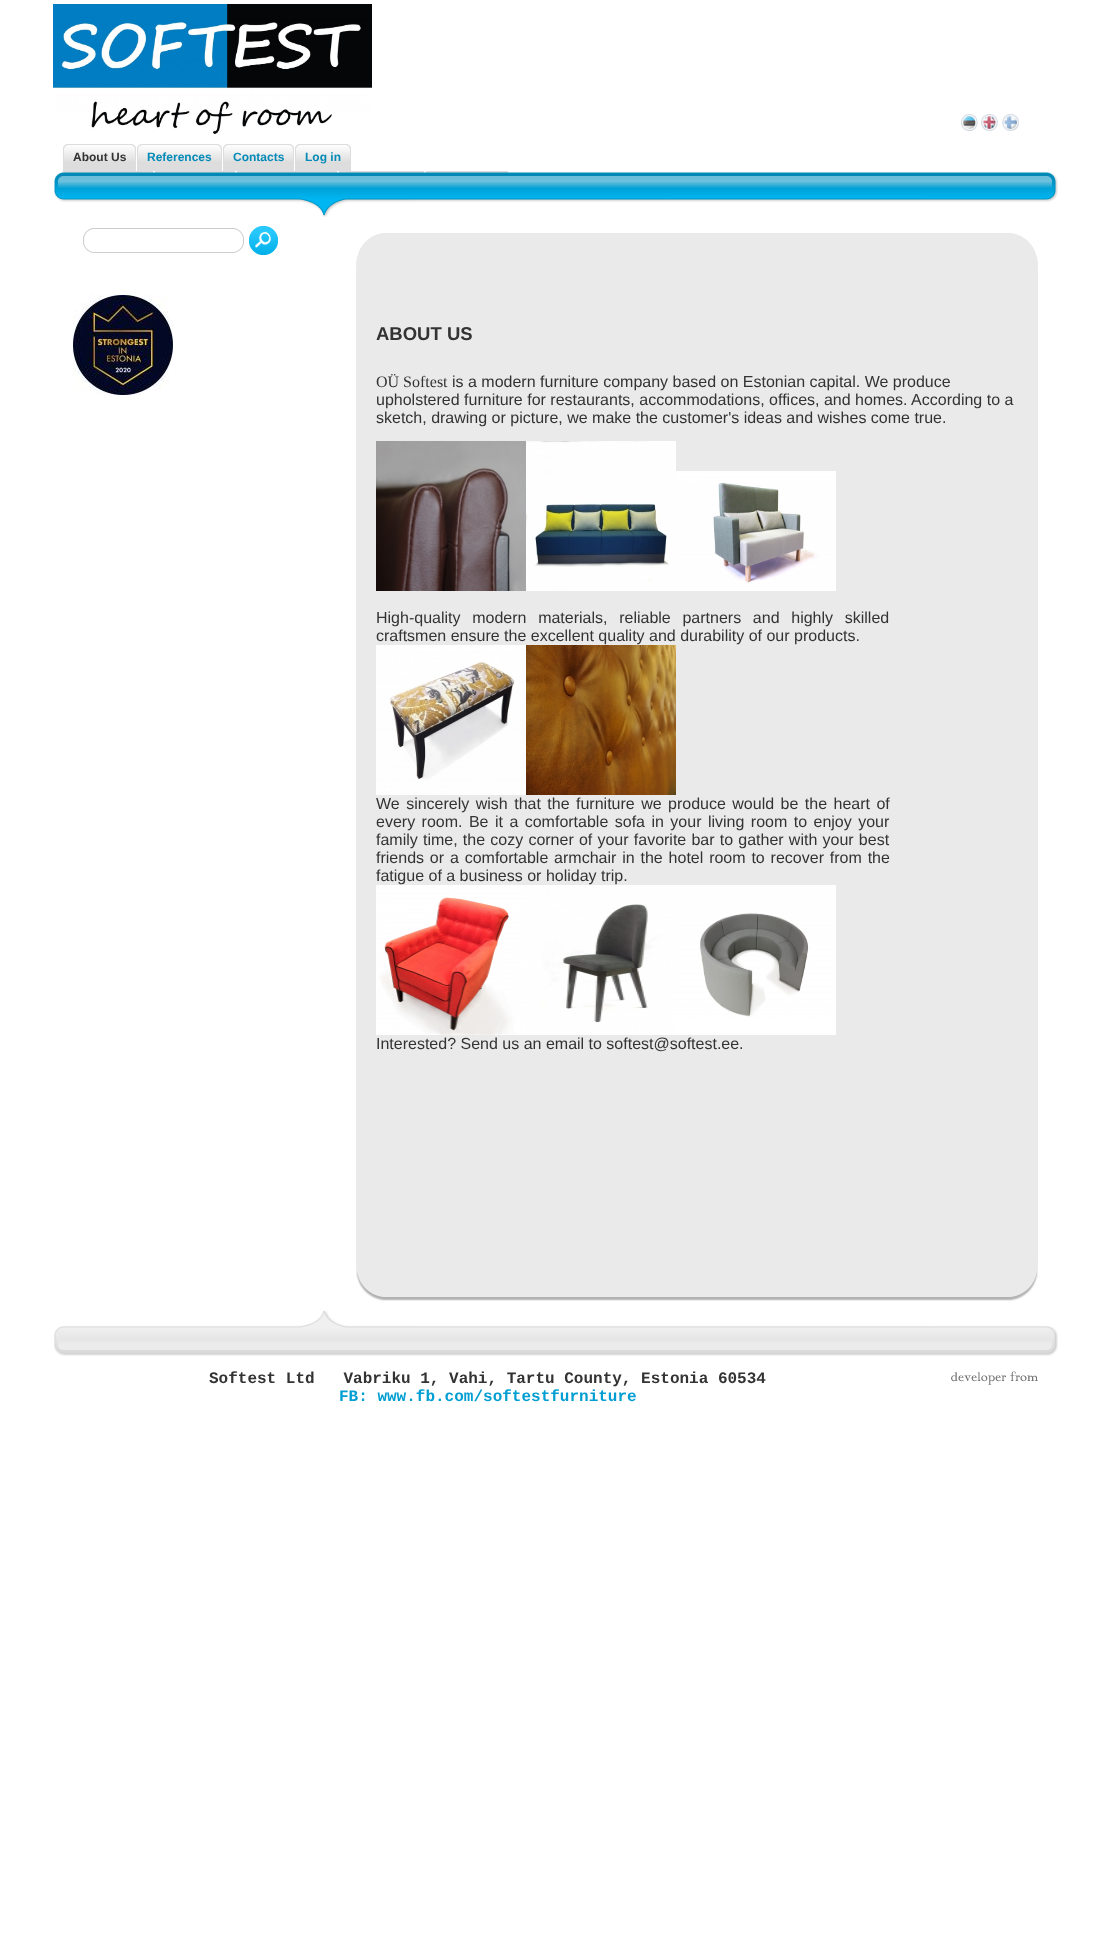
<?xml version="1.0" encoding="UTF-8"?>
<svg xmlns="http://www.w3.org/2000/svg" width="1111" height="1933">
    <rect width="100%" height="100%" fill="#FFFFFF"/>
    <image x="53" y="4" width="319" height="130" href="img_01.png"/>
    <image x="961" y="114" width="17" height="17" href="img_02.png"/>
    <image x="981" y="114" width="17" height="17" href="img_03.png"/>
    <image x="1002" y="114" width="17" height="17" href="img_04.png"/>
    <image x="126" y="144" width="10" height="27" href="img_05.png"/>
    <image x="63" y="144" width="63" height="27" href="img_06.png"/>
    <text x="73" y="161" font-family="Liberation Sans" font-size="12" font-weight="700" fill="#333333">About Us</text>
    <image x="212" y="144" width="10" height="27" href="img_07.png"/>
    <image x="137" y="144" width="75" height="27" href="img_08.png"/>
    <text x="147" y="161" font-family="Liberation Sans" font-size="12" font-weight="700" fill="#048AB7">References</text>
    <image x="284" y="144" width="10" height="27" href="img_05.png"/>
    <image x="223" y="144" width="61" height="27" href="img_09.png"/>
    <text x="233" y="161" font-family="Liberation Sans" font-size="12" font-weight="700" fill="#048AB7">Contacts</text>
    <image x="341" y="144" width="10" height="27" href="img_07.png"/>
    <image x="295" y="144" width="46" height="27" href="img_10.png"/>
    <text x="305" y="161" font-family="Liberation Sans" font-size="12" font-weight="700" fill="#048AB7">Log in</text>
    <image x="54" y="171" width="1004" height="46" href="img_11.png"/>
    <image x="83" y="228" width="161" height="25" href="img_12.png"/>
    <image x="249" y="226" width="29" height="29" href="img_13.png"/>
    <image x="73" y="295" width="100" height="100" href="img_14.png"/>
    <rect x="356" y="271" width="682" height="992" fill="#EAEAEA"/>
    <image x="356" y="233" width="682" height="38" href="img_15.png"/>
    <text x="376" y="340" font-family="Liberation Sans" font-size="18.5" font-weight="700" fill="#333333">ABOUT US</text>
    <text x="376" y="387" font-family="Liberation Serif" font-size="16" fill="#333333">OÜ Softest</text>
    <text x="452" y="387" font-family="Liberation Sans" font-size="16" fill="#333333">is a modern furniture company based on Estonian capital. We produce</text>
    <text font-family="Liberation Sans" font-size="16" fill="#333333">
        <tspan x="376" y="405">upholstered furniture for restaurants, accommodations, offices, and homes. According to a</tspan>
        <tspan x="376" y="423">sketch, drawing or picture, we make the customer's ideas and wishes come true.</tspan>
    </text>
    <image x="376" y="441" width="150" height="150" href="img_16.png"/>
    <image x="526" y="441" width="150" height="150" href="img_17.png"/>
    <image x="676" y="471" width="160" height="120" href="img_18.png"/>
    <text font-family="Liberation Sans" font-size="16" fill="#333333">
        <tspan x="376" y="623" word-spacing="7.25">High-quality modern materials, reliable partners and highly skilled</tspan>
        <tspan x="376" y="641">craftsmen ensure the excellent quality and durability of our products.</tspan>
    </text>
    <image x="376" y="645" width="150" height="150" href="img_19.png"/>
    <image x="526" y="645" width="150" height="150" href="img_20.png"/>
    <text font-family="Liberation Sans" font-size="16" fill="#333333">
        <tspan x="376" y="809" word-spacing="2">We sincerely wish that the furniture we produce would be the heart of</tspan>
        <tspan x="376" y="827" word-spacing="2">every room. Be it a comfortable sofa in your living room to enjoy your</tspan>
        <tspan x="376" y="845" word-spacing="0.75">family time, the cozy corner of your favorite bar to gather with your best</tspan>
        <tspan x="376" y="863" word-spacing="1.4">friends or a comfortable armchair in the hotel room to recover from the</tspan>
        <tspan x="376" y="881">fatigue of a business or holiday trip.</tspan>
    </text>
    <image x="376" y="885" width="150" height="150" href="img_21.png"/>
    <image x="526" y="885" width="150" height="150" href="img_22.png"/>
    <image x="676" y="885" width="160" height="150" href="img_23.png"/>
    <text x="376" y="1049" font-family="Liberation Sans" font-size="16" fill="#333333">Interested? Send us an email to softest@softest.ee.</text>
    <image x="356" y="1263" width="682" height="38" href="img_24.png"/>
    <image x="54" y="1310" width="1004" height="46" href="img_25.png"/>
    <text x="209" y="1383" font-family="Liberation Mono" font-size="16" font-weight="700" fill="#333333" xml:space="preserve">Softest Ltd   Vabriku 1, Vahi, Tartu County, Estonia 60534</text>
    <text x="339" y="1401" font-family="Liberation Mono" font-size="16" font-weight="700" fill="#009ED2">FB: www.fb.com/softestfurniture</text>
    <image x="951" y="1371" width="87" height="14" href="img_26.png"/>
</svg>
